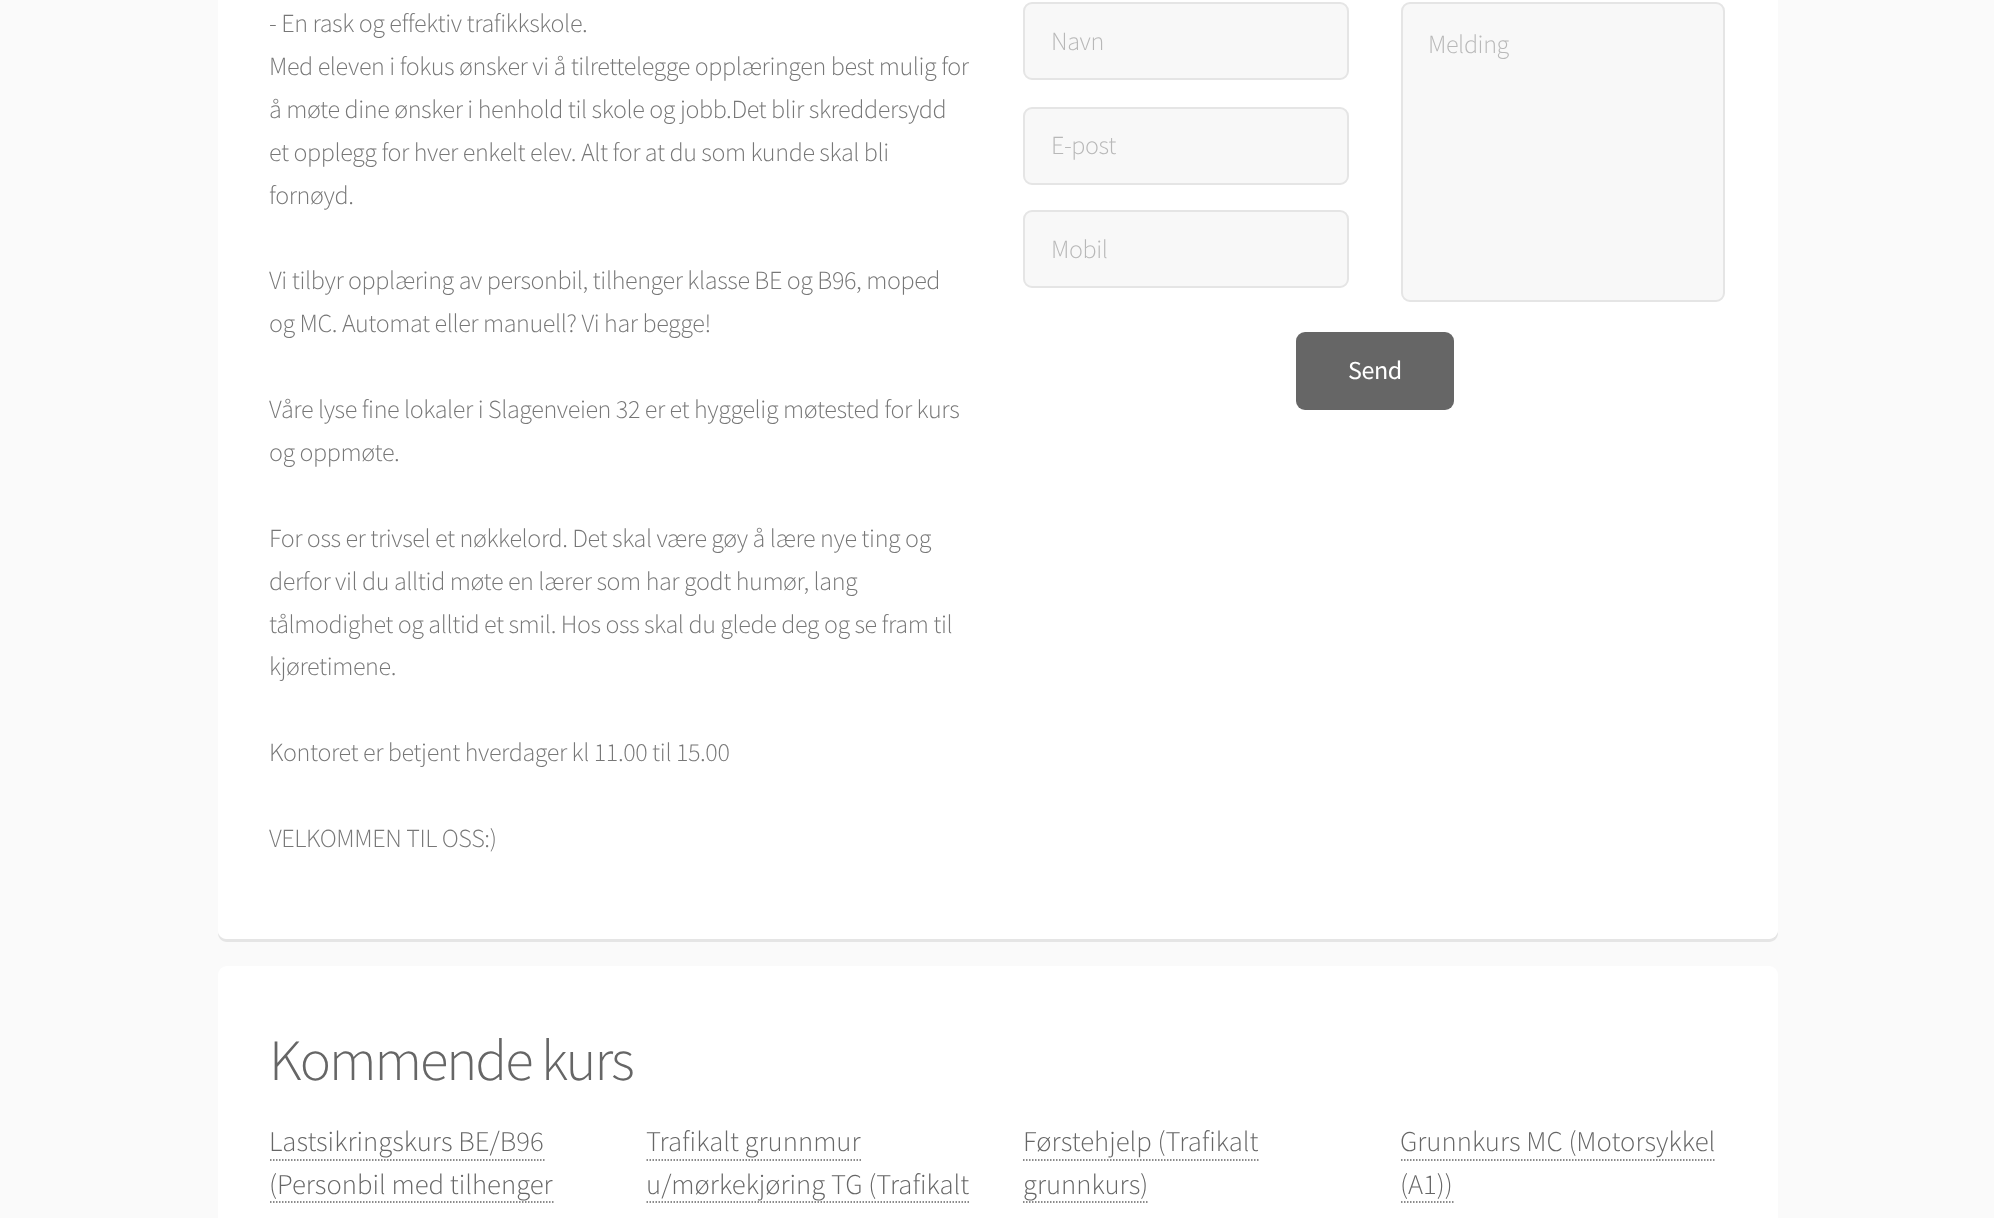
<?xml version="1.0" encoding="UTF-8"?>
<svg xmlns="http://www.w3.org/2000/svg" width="1994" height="1218">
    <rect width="100%" height="100%" fill="#FAFAFA"/>
    <path d="M 218 933 C 218 938 222 942 227 942 H 1769 C 1774 942 1778 938 1778 933 V -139 V -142 V 930 C 1778 935 1773 939 1768 939 H 226 C 223 939 219 936 218 933 Z" fill="#E5E5E5"/>
    <rect x="218" y="-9" width="1560" height="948" rx="9" fill="#FFFFFF"/>
    <text font-family="Source Sans Pro" font-size="26" font-weight="300" letter-spacing="-0.4" fill="#777777">
        <tspan x="269" y="32">- En rask og effektiv trafikkskole.</tspan>
        <tspan x="269" y="75">Med eleven i fokus ønsker vi å tilrettelegge opplæringen best mulig for</tspan>
        <tspan x="269" y="118">å møte dine ønsker i henhold til skole og jobb.Det blir skreddersydd</tspan>
        <tspan x="269" y="161">et opplegg for hver enkelt elev. Alt for at du som kunde skal bli</tspan>
        <tspan x="269" y="204">fornøyd.</tspan>
    </text>
    <text font-family="Source Sans Pro" font-size="26" font-weight="300" letter-spacing="-0.4" fill="#777777">
        <tspan x="269" y="289">Vi tilbyr opplæring av personbil, tilhenger klasse BE og B96, moped</tspan>
        <tspan x="269" y="332">og MC. Automat eller manuell? Vi har begge!</tspan>
    </text>
    <text font-family="Source Sans Pro" font-size="26" font-weight="300" letter-spacing="-0.4" fill="#777777">
        <tspan x="269" y="418">Våre lyse fine lokaler i Slagenveien 32 er et hyggelig møtested for kurs</tspan>
        <tspan x="269" y="461">og oppmøte.</tspan>
    </text>
    <text font-family="Source Sans Pro" font-size="26" font-weight="300" letter-spacing="-0.4" fill="#777777">
        <tspan x="269" y="547">For oss er trivsel et nøkkelord. Det skal være gøy å lære nye ting og</tspan>
        <tspan x="269" y="590">derfor vil du alltid møte en lærer som har godt humør, lang</tspan>
        <tspan x="269" y="633">tålmodighet og alltid et smil. Hos oss skal du glede deg og se fram til</tspan>
        <tspan x="269" y="675">kjøretimene.</tspan>
    </text>
    <text x="269" y="761" font-family="Source Sans Pro" font-size="26" font-weight="300" letter-spacing="-0.4" fill="#777777">Kontoret er betjent hverdager kl 11.00 til 15.00</text>
    <text x="269" y="847" font-family="Source Sans Pro" font-size="26" font-weight="300" letter-spacing="-0.4" fill="#777777">VELKOMMEN TIL OSS:)</text>
    <rect x="1024" y="3" width="324" height="76" rx="8" fill="#F8F8F8" stroke="#E5E5E5" stroke-width="2"/>
    <text x="1051" y="50" font-family="Source Sans Pro" font-size="26" font-weight="300" letter-spacing="-0.4" fill="#B8B8B8">Navn</text>
    <rect x="1024" y="108" width="324" height="76" rx="8" fill="#F8F8F8" stroke="#E5E5E5" stroke-width="2"/>
    <text x="1051" y="154" font-family="Source Sans Pro" font-size="26" font-weight="300" letter-spacing="-0.4" fill="#B8B8B8">E-post</text>
    <rect x="1024" y="211" width="324" height="76" rx="8" fill="#F8F8F8" stroke="#E5E5E5" stroke-width="2"/>
    <text x="1051" y="258" font-family="Source Sans Pro" font-size="26" font-weight="300" letter-spacing="-0.4" fill="#B8B8B8">Mobil</text>
    <rect x="1402" y="3" width="322" height="298" rx="8" fill="#F8F8F8" stroke="#E5E5E5" stroke-width="2"/>
    <text x="1428" y="53" font-family="Source Sans Pro" font-size="26" font-weight="300" letter-spacing="-0.4" fill="#B8B8B8">Melding</text>
    <rect x="1296" y="332" width="158" height="78" rx="9" fill="#666666"/>
    <text x="1348" y="379" font-family="Source Sans Pro" font-size="26" letter-spacing="-0.4" fill="#FFFFFF">Send</text>
    <rect x="218" y="966" width="1560" height="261" rx="9" fill="#FFFFFF"/>
    <text x="269" y="1080" font-family="Source Sans Pro" font-size="58.5" font-weight="300" letter-spacing="-2" fill="#666666">Kommende kurs</text>
    <text x="269" y="1151" font-family="Source Sans Pro" font-size="28.6" font-weight="300" fill="#666666">Lastsikringskurs BE/B96</text>
    <path d="M 270 1160 H 544.5" fill="none" stroke="#666666" stroke-width="1.5" stroke-dasharray="1.5 1.5"/>
    <text x="269" y="1194" font-family="Source Sans Pro" font-size="28.6" font-weight="300" fill="#666666">(Personbil med tilhenger</text>
    <path d="M 270 1202 H 553.5" fill="none" stroke="#666666" stroke-width="1.5" stroke-dasharray="1.5 1.5"/>
    <text x="646" y="1151" font-family="Source Sans Pro" font-size="28.6" font-weight="300" fill="#666666">Trafikalt grunnmur</text>
    <path d="M 646.5 1160 H 861" fill="none" stroke="#666666" stroke-width="1.5" stroke-dasharray="1.5 1.5"/>
    <text x="646" y="1194" font-family="Source Sans Pro" font-size="28.6" font-weight="300" fill="#666666">u/mørkekjøring TG (Trafikalt</text>
    <path d="M 646.5 1202 H 969" fill="none" stroke="#666666" stroke-width="1.5" stroke-dasharray="1.5 1.5"/>
    <text x="1023" y="1151" font-family="Source Sans Pro" font-size="28.6" font-weight="300" fill="#666666">Førstehjelp (Trafikalt</text>
    <path d="M 1023 1160 H 1258.5" fill="none" stroke="#666666" stroke-width="1.5" stroke-dasharray="1.5 1.5"/>
    <text x="1023" y="1194" font-family="Source Sans Pro" font-size="28.6" font-weight="300" fill="#666666">grunnkurs)</text>
    <path d="M 1023 1202 H 1149" fill="none" stroke="#666666" stroke-width="1.5" stroke-dasharray="1.5 1.5"/>
    <text x="1400" y="1151" font-family="Source Sans Pro" font-size="28.6" font-weight="300" fill="#666666">Grunnkurs MC (Motorsykkel</text>
    <path d="M 1401 1160 H 1716" fill="none" stroke="#666666" stroke-width="1.5" stroke-dasharray="1.5 1.5"/>
    <text x="1400" y="1194" font-family="Source Sans Pro" font-size="28.6" font-weight="300" fill="#666666">(A1))</text>
    <path d="M 1401 1202 H 1453.5" fill="none" stroke="#666666" stroke-width="1.5" stroke-dasharray="1.5 1.5"/>
</svg>
